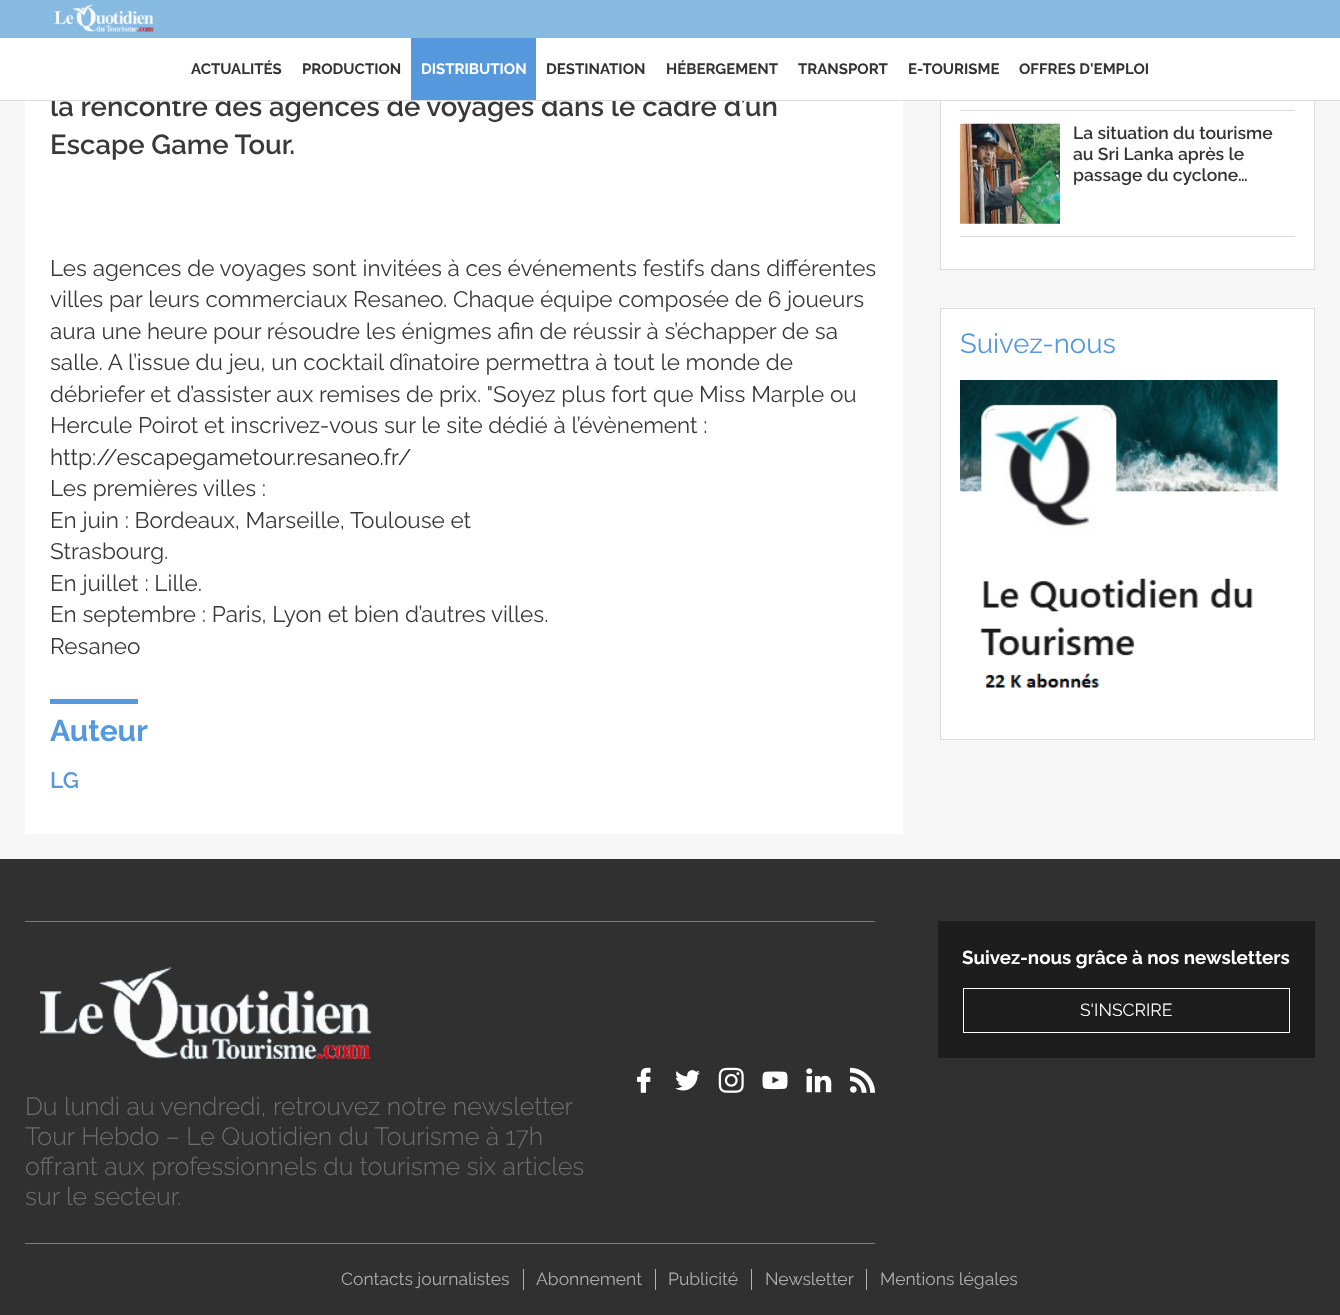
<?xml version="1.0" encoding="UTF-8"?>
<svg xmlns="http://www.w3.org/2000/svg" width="1340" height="1315">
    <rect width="100%" height="100%" fill="#F6F6F6"/>
    <rect x="941" y="101" width="373" height="168" fill="#FFFFFF"/>
    <rect x="940.5" y="-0.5" width="374" height="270" fill="none" stroke="#DCDCDC"/>
    <rect x="0" y="0" width="1340" height="38" fill="#87BAE1"/>
    <rect x="25" y="101" width="878" height="733" fill="#FFFFFF"/>
    <text x="50" y="116" font-family="Raleway" font-size="27.5" font-weight="600" fill="#393939">la rencontre des agences de voyages dans le cadre d’un</text>
    <rect x="0" y="100" width="1340" height="1" fill="#DCDCDC"/>
    <image x="54" y="4" width="100" height="28" href="img_01.png"/>
    <rect x="0" y="38" width="1340" height="62" fill="#FFFFFF"/>
    <text x="191" y="74" font-family="Raleway" font-size="15" font-weight="700" fill="#333333">ACTUALITÉS</text>
    <text x="302" y="74" font-family="Raleway" font-size="15" font-weight="700" fill="#333333">PRODUCTION</text>
    <rect x="411" y="38" width="125" height="62" fill="#5598DD"/>
    <text x="421" y="74" font-family="Raleway" font-size="15" font-weight="700" fill="#FFFFFF">DISTRIBUTION</text>
    <text x="546" y="74" font-family="Raleway" font-size="15" font-weight="700" fill="#333333">DESTINATION</text>
    <text x="666" y="74" font-family="Raleway" font-size="15" font-weight="700" fill="#333333">HÉBERGEMENT</text>
    <text x="798" y="74" font-family="Raleway" font-size="15" font-weight="700" fill="#333333">TRANSPORT</text>
    <text x="908" y="74" font-family="Raleway" font-size="15" font-weight="700" fill="#333333">E-TOURISME</text>
    <text x="1019" y="74" font-family="Raleway" font-size="15" font-weight="700" fill="#333333">OFFRES D'EMPLOI</text>
    <text x="50" y="154" font-family="Raleway" font-size="27.5" font-weight="600" fill="#393939">Escape Game Tour.</text>
    <text font-family="Raleway" font-size="22.5" fill="#393939">
        <tspan x="50" y="276">Les agences de voyages sont invitées à ces événements festifs dans différentes</tspan>
        <tspan x="50" y="307">villes par leurs commerciaux Resaneo. Chaque équipe composée de 6 joueurs</tspan>
        <tspan x="50" y="339">aura une heure pour résoudre les énigmes afin de réussir à s’échapper de sa</tspan>
        <tspan x="50" y="370">salle. A l’issue du jeu, un cocktail dînatoire permettra à tout le monde de</tspan>
        <tspan x="50" y="402">débriefer et d’assister aux remises de prix. "Soyez plus fort que Miss Marple ou</tspan>
        <tspan x="50" y="433">Hercule Poirot et inscrivez-vous sur le site dédié à l’évènement :</tspan>
    </text>
    <text x="50" y="465" font-family="Raleway" font-size="22.5" fill="#333333">http://escapegametour.resaneo.fr/</text>
    <text font-family="Raleway" font-size="22.5" fill="#393939">
        <tspan x="50" y="496">Les premières villes :</tspan>
        <tspan x="50" y="528">En juin : Bordeaux, Marseille, Toulouse et</tspan>
        <tspan x="50" y="559">Strasbourg.</tspan>
        <tspan x="50" y="591">En juillet : Lille.</tspan>
        <tspan x="50" y="622">En septembre : Paris, Lyon et bien d’autres villes.</tspan>
        <tspan x="50" y="654">Resaneo</tspan>
    </text>
    <rect x="50" y="699" width="88" height="5" fill="#5598DD"/>
    <text x="50" y="741" font-family="Raleway" font-size="30" font-weight="700" fill="#5598DD">Auteur</text>
    <text x="50" y="788" font-family="Raleway" font-size="22.5" font-weight="600" fill="#5598DD">LG</text>
    <rect x="960" y="110" width="335" height="1" fill="#DCDCDC"/>
    <rect x="960" y="236" width="335" height="1" fill="#DCDCDC"/>
    <image x="960" y="123" width="100" height="101" href="img_02.png"/>
    <text font-family="Raleway" font-size="17.5" font-weight="600" fill="#333333">
        <tspan x="1073" y="139">La situation du tourisme</tspan>
        <tspan x="1073" y="160">au Sri Lanka après le</tspan>
        <tspan x="1073" y="181">passage du cyclone…</tspan>
    </text>
    <rect x="940.5" y="308.5" width="374" height="431" fill="#FFFFFF" stroke="#DCDCDC"/>
    <text x="960" y="353" font-family="Raleway" font-size="27.5" fill="#5598DD">Suivez-nous</text>
    <image x="960" y="380" width="318" height="308" href="img_03.png"/>
    <rect x="0" y="859" width="1340" height="456" fill="#303030"/>
    <rect x="938" y="921" width="377" height="137" fill="#1D1D1D"/>
    <text x="962" y="964" font-family="Raleway" font-size="18.75" font-weight="700" fill="#FFFFFF">Suivez-nous grâce à nos newsletters</text>
    <rect x="963.5" y="988.5" width="326" height="44" fill="none" stroke="#FFFFFF"/>
    <text x="1080" y="1016" font-family="Raleway" font-size="17.5" fill="#FFFFFF">S'INSCRIRE</text>
    <rect x="25" y="921" width="850" height="1" fill="#7B7B7B"/>
    <rect x="25" y="1243" width="850" height="1" fill="#7B7B7B"/>
    <image x="637" y="1067" width="14" height="26" href="img_04.png"/>
    <image x="675" y="1070" width="25" height="21" href="img_05.png"/>
    <image x="718" y="1067" width="26" height="26" href="img_06.png"/>
    <image x="762" y="1071" width="26" height="19" href="img_07.png"/>
    <image x="806" y="1068" width="26" height="25" href="img_08.png"/>
    <image x="850" y="1067" width="25" height="26" href="img_09.png"/>
    <image x="39" y="967" width="333" height="92" href="img_10.png"/>
    <text font-family="Raleway" font-size="25" font-weight="300" fill="#6E6E6E">
        <tspan x="25" y="1115">Du lundi au vendredi, retrouvez notre newsletter</tspan>
        <tspan x="25" y="1145">Tour Hebdo – Le Quotidien du Tourisme à 17h</tspan>
        <tspan x="25" y="1175">offrant aux professionnels du tourisme six articles</tspan>
        <tspan x="25" y="1205">sur le secteur.</tspan>
    </text>
    <rect x="523" y="1269" width="1" height="21" fill="#AFAFAF"/>
    <text x="341" y="1285" font-family="Raleway" font-size="17.5" fill="#AFAFAF">Contacts journalistes</text>
    <rect x="655" y="1269" width="1" height="21" fill="#AFAFAF"/>
    <text x="536" y="1285" font-family="Raleway" font-size="17.5" fill="#AFAFAF">Abonnement</text>
    <rect x="751" y="1269" width="1" height="21" fill="#AFAFAF"/>
    <text x="668" y="1285" font-family="Raleway" font-size="17.5" fill="#AFAFAF">Publicité</text>
    <rect x="866" y="1269" width="1" height="21" fill="#AFAFAF"/>
    <text x="765" y="1285" font-family="Raleway" font-size="17.5" fill="#AFAFAF">Newsletter</text>
    <text x="880" y="1285" font-family="Raleway" font-size="17.5" fill="#AFAFAF">Mentions légales</text>
</svg>
